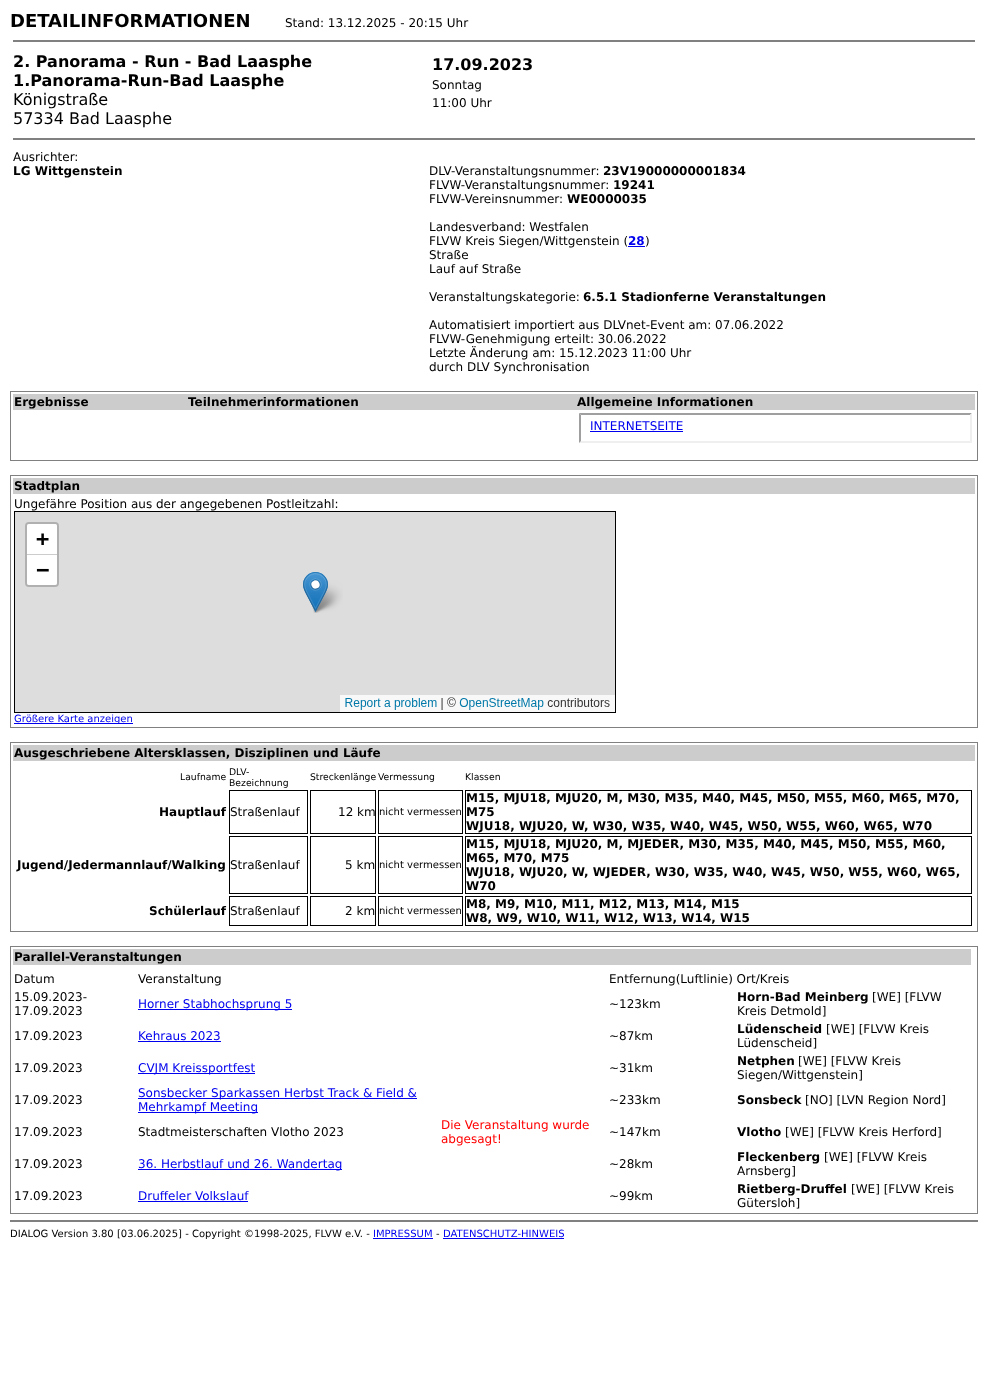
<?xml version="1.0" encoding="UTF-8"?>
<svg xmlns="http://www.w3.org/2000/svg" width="986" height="1399">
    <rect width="100%" height="100%" fill="#FFFFFF"/>
    <text x="10" y="27" font-family="DejaVu Sans" font-size="18" font-weight="700" fill="#000000">DETAILINFORMATIONEN</text>
    <text x="285" y="27" font-family="DejaVu Sans" font-size="12" fill="#000000">Stand: 13.12.2025 - 20:15 Uhr</text>
    <rect x="13" y="40" width="962" height="2" fill="#808080"/>
    <text font-family="DejaVu Sans" font-size="16" font-weight="700" fill="#000000">
        <tspan x="13" y="67">2. Panorama - Run - Bad Laasphe</tspan>
        <tspan x="13" y="86">1.Panorama-Run-Bad Laasphe</tspan>
    </text>
    <text font-family="DejaVu Sans" font-size="16" fill="#000000">
        <tspan x="13" y="105">Königstraße</tspan>
        <tspan x="13" y="124">57334 Bad Laasphe</tspan>
    </text>
    <text x="432" y="70" font-family="DejaVu Sans" font-size="16" font-weight="700" fill="#000000">17.09.2023</text>
    <text font-family="DejaVu Sans" font-size="12" fill="#000000">
        <tspan x="432" y="89">Sonntag</tspan>
        <tspan x="432" y="107">11:00 Uhr</tspan>
    </text>
    <rect x="13" y="138" width="962" height="2" fill="#808080"/>
    <text x="13" y="161" font-family="DejaVu Sans" font-size="12" fill="#000000">Ausrichter:</text>
    <text x="13" y="175" font-family="DejaVu Sans" font-size="12" font-weight="700" fill="#000000">LG Wittgenstein</text>
    <text x="429" y="175" font-family="DejaVu Sans" font-size="12" fill="#000000">DLV-Veranstaltungsnummer:</text>
    <text x="603" y="175" font-family="DejaVu Sans" font-size="12" font-weight="700" fill="#000000">23V19000000001834</text>
    <text x="429" y="189" font-family="DejaVu Sans" font-size="12" fill="#000000">FLVW-Veranstaltungsnummer:</text>
    <text x="613" y="189" font-family="DejaVu Sans" font-size="12" font-weight="700" fill="#000000">19241</text>
    <text x="429" y="203" font-family="DejaVu Sans" font-size="12" fill="#000000">FLVW-Vereinsnummer:</text>
    <text x="567" y="203" font-family="DejaVu Sans" font-size="12" font-weight="700" fill="#000000">WE0000035</text>
    <text font-family="DejaVu Sans" font-size="12" fill="#000000">
        <tspan x="429" y="231">Landesverband: Westfalen</tspan>
        <tspan x="429" y="245">FLVW Kreis Siegen/Wittgenstein (</tspan>
    </text>
    <text x="628" y="245" font-family="DejaVu Sans" font-size="12" font-weight="700" fill="#0000EE">28</text>
    <rect x="628" y="246" width="17" height="1" fill="#0000EE"/>
    <text x="645" y="245" font-family="DejaVu Sans" font-size="12" fill="#000000">)</text>
    <text font-family="DejaVu Sans" font-size="12" fill="#000000">
        <tspan x="429" y="259">Straße</tspan>
        <tspan x="429" y="273">Lauf auf Straße</tspan>
    </text>
    <text x="429" y="301" font-family="DejaVu Sans" font-size="12" fill="#000000">Veranstaltungskategorie:</text>
    <text x="583" y="301" font-family="DejaVu Sans" font-size="12" font-weight="700" fill="#000000">6.5.1 Stadionferne Veranstaltungen</text>
    <text font-family="DejaVu Sans" font-size="12" fill="#000000">
        <tspan x="429" y="329">Automatisiert importiert aus DLVnet-Event am: 07.06.2022</tspan>
        <tspan x="429" y="343">FLVW-Genehmigung erteilt: 30.06.2022</tspan>
        <tspan x="429" y="357">Letzte Änderung am: 15.12.2023 11:00 Uhr</tspan>
        <tspan x="429" y="371">durch DLV Synchronisation</tspan>
    </text>
    <rect x="10.5" y="391.5" width="967" height="69" fill="none" stroke="#808080"/>
    <rect x="13" y="394" width="962" height="16" fill="#CCCCCC"/>
    <text x="14" y="406" font-family="DejaVu Sans" font-size="12" font-weight="700" fill="#000000">Ergebnisse</text>
    <text x="188" y="406" font-family="DejaVu Sans" font-size="12" font-weight="700" fill="#000000">Teilnehmerinformationen</text>
    <text x="577" y="406" font-family="DejaVu Sans" font-size="12" font-weight="700" fill="#000000">Allgemeine Informationen</text>
    <path d="M 579 413 H 972 L 970 415 H 581 Z" fill="#9F9F9F"/>
    <path d="M 972 413 V 443 L 970 441 V 415 Z" fill="#EFEFEF"/>
    <path d="M 972 443 H 579 L 581 441 H 970 Z" fill="#EFEFEF"/>
    <path d="M 579 443 V 413 L 581 415 V 441 Z" fill="#9F9F9F"/>
    <text x="590" y="430" font-family="DejaVu Sans" font-size="12" fill="#0000EE">INTERNETSEITE</text>
    <rect x="590" y="431" width="93" height="1" fill="#0000EE"/>
    <rect x="10.5" y="475.5" width="967" height="252" fill="none" stroke="#808080"/>
    <rect x="13" y="478" width="962" height="16" fill="#CCCCCC"/>
    <text x="14" y="490" font-family="DejaVu Sans" font-size="12" font-weight="700" fill="#000000">Stadtplan</text>
    <text x="14" y="508" font-family="DejaVu Sans" font-size="12" fill="#000000">Ungefähre Position aus der angegebenen Postleitzahl:</text>
    <rect x="14.5" y="511.5" width="601" height="201" fill="none" stroke="#000000"/>
    <image x="15" y="512" width="600" height="200" href="img_01.png"/>
    <rect x="14" y="723" width="119" height="1" fill="#0000EE"/>
    <text x="14" y="722" font-family="DejaVu Sans" font-size="10" fill="#0000EE">Größere Karte anzeigen</text>
    <rect x="10.5" y="742.5" width="967" height="189" fill="none" stroke="#808080"/>
    <rect x="13" y="745" width="962" height="16" fill="#CCCCCC"/>
    <text x="14" y="757" font-family="DejaVu Sans" font-size="12" font-weight="700" fill="#000000">Ausgeschriebene Altersklassen, Disziplinen und Läufe</text>
    <text x="180" y="780" font-family="DejaVu Sans" font-size="9.25" fill="#000000">Laufname</text>
    <text font-family="DejaVu Sans" font-size="9.25" fill="#000000">
        <tspan x="229" y="775">DLV-</tspan>
        <tspan x="229" y="786">Bezeichnung</tspan>
    </text>
    <text x="310" y="780" font-family="DejaVu Sans" font-size="9.25" fill="#000000">Streckenlänge</text>
    <text x="378" y="780" font-family="DejaVu Sans" font-size="9.25" fill="#000000">Vermessung</text>
    <text x="465" y="780" font-family="DejaVu Sans" font-size="9.25" fill="#000000">Klassen</text>
    <text x="159" y="816" font-family="DejaVu Sans" font-size="12" font-weight="700" fill="#000000">Hauptlauf</text>
    <rect x="229.5" y="790.5" width="78" height="43" fill="none" stroke="#000000"/>
    <text x="230" y="816" font-family="DejaVu Sans" font-size="12" fill="#000000">Straßenlauf</text>
    <rect x="310.5" y="790.5" width="65" height="43" fill="none" stroke="#000000"/>
    <text x="338" y="816" font-family="DejaVu Sans" font-size="12" fill="#000000">12 km</text>
    <rect x="378.5" y="790.5" width="84" height="43" fill="none" stroke="#000000"/>
    <text x="379" y="815" font-family="DejaVu Sans" font-size="10" fill="#000000">nicht vermessen</text>
    <rect x="465.5" y="790.5" width="506" height="43" fill="none" stroke="#000000"/>
    <text font-family="DejaVu Sans" font-size="12" font-weight="700" fill="#000000">
        <tspan x="466" y="802">M15, MJU18, MJU20, M, M30, M35, M40, M45, M50, M55, M60, M65, M70,</tspan>
        <tspan x="466" y="816">M75</tspan>
        <tspan x="466" y="830">WJU18, WJU20, W, W30, W35, W40, W45, W50, W55, W60, W65, W70</tspan>
    </text>
    <text x="17" y="869" font-family="DejaVu Sans" font-size="12" font-weight="700" fill="#000000">Jugend/Jedermannlauf/Walking</text>
    <rect x="229.5" y="836.5" width="78" height="57" fill="none" stroke="#000000"/>
    <text x="230" y="869" font-family="DejaVu Sans" font-size="12" fill="#000000">Straßenlauf</text>
    <rect x="310.5" y="836.5" width="65" height="57" fill="none" stroke="#000000"/>
    <text x="345" y="869" font-family="DejaVu Sans" font-size="12" fill="#000000">5 km</text>
    <rect x="378.5" y="836.5" width="84" height="57" fill="none" stroke="#000000"/>
    <text x="379" y="868" font-family="DejaVu Sans" font-size="10" fill="#000000">nicht vermessen</text>
    <rect x="465.5" y="836.5" width="506" height="57" fill="none" stroke="#000000"/>
    <text font-family="DejaVu Sans" font-size="12" font-weight="700" fill="#000000">
        <tspan x="466" y="848">M15, MJU18, MJU20, M, MJEDER, M30, M35, M40, M45, M50, M55, M60,</tspan>
        <tspan x="466" y="862">M65, M70, M75</tspan>
        <tspan x="466" y="876">WJU18, WJU20, W, WJEDER, W30, W35, W40, W45, W50, W55, W60, W65,</tspan>
        <tspan x="466" y="890">W70</tspan>
    </text>
    <text x="149" y="915" font-family="DejaVu Sans" font-size="12" font-weight="700" fill="#000000">Schülerlauf</text>
    <rect x="229.5" y="896.5" width="78" height="29" fill="none" stroke="#000000"/>
    <text x="230" y="915" font-family="DejaVu Sans" font-size="12" fill="#000000">Straßenlauf</text>
    <rect x="310.5" y="896.5" width="65" height="29" fill="none" stroke="#000000"/>
    <text x="345" y="915" font-family="DejaVu Sans" font-size="12" fill="#000000">2 km</text>
    <rect x="378.5" y="896.5" width="84" height="29" fill="none" stroke="#000000"/>
    <text x="379" y="914" font-family="DejaVu Sans" font-size="10" fill="#000000">nicht vermessen</text>
    <rect x="465.5" y="896.5" width="506" height="29" fill="none" stroke="#000000"/>
    <text font-family="DejaVu Sans" font-size="12" font-weight="700" fill="#000000">
        <tspan x="466" y="908">M8, M9, M10, M11, M12, M13, M14, M15</tspan>
        <tspan x="466" y="922">W8, W9, W10, W11, W12, W13, W14, W15</tspan>
    </text>
    <rect x="10.5" y="946.5" width="967" height="267" fill="none" stroke="#808080"/>
    <rect x="13" y="949" width="958" height="16" fill="#CCCCCC"/>
    <text x="14" y="961" font-family="DejaVu Sans" font-size="12" font-weight="700" fill="#000000">Parallel-Veranstaltungen</text>
    <text x="14" y="983" font-family="DejaVu Sans" font-size="12" fill="#000000">Datum</text>
    <text x="138" y="983" font-family="DejaVu Sans" font-size="12" fill="#000000">Veranstaltung</text>
    <text x="609" y="983" font-family="DejaVu Sans" font-size="12" fill="#000000">Entfernung(Luftlinie) Ort/Kreis</text>
    <text font-family="DejaVu Sans" font-size="12" fill="#000000">
        <tspan x="14" y="1001">15.09.2023-</tspan>
        <tspan x="14" y="1015">17.09.2023</tspan>
    </text>
    <rect x="138" y="1009" width="154" height="1" fill="#0000EE"/>
    <text x="138" y="1008" font-family="DejaVu Sans" font-size="12" fill="#0000EE">Horner Stabhochsprung 5</text>
    <text x="609" y="1008" font-family="DejaVu Sans" font-size="12" fill="#000000">~123km</text>
    <text x="737" y="1001" font-family="DejaVu Sans" font-size="12" font-weight="700" fill="#000000">Horn-Bad Meinberg</text>
    <text x="872" y="1001" font-family="DejaVu Sans" font-size="12" fill="#000000">[WE] [FLVW</text>
    <text x="737" y="1015" font-family="DejaVu Sans" font-size="12" fill="#000000">Kreis Detmold]</text>
    <text x="14" y="1040" font-family="DejaVu Sans" font-size="12" fill="#000000">17.09.2023</text>
    <text x="138" y="1040" font-family="DejaVu Sans" font-size="12" fill="#0000EE">Kehraus 2023</text>
    <rect x="138" y="1041" width="83" height="1" fill="#0000EE"/>
    <text x="609" y="1040" font-family="DejaVu Sans" font-size="12" fill="#000000">~87km</text>
    <text x="737" y="1033" font-family="DejaVu Sans" font-size="12" font-weight="700" fill="#000000">Lüdenscheid</text>
    <text x="826" y="1033" font-family="DejaVu Sans" font-size="12" fill="#000000">[WE] [FLVW Kreis</text>
    <text x="737" y="1047" font-family="DejaVu Sans" font-size="12" fill="#000000">Lüdenscheid]</text>
    <text x="14" y="1072" font-family="DejaVu Sans" font-size="12" fill="#000000">17.09.2023</text>
    <rect x="138" y="1073" width="117" height="1" fill="#0000EE"/>
    <text x="138" y="1072" font-family="DejaVu Sans" font-size="12" fill="#0000EE">CVJM Kreissportfest</text>
    <text x="609" y="1072" font-family="DejaVu Sans" font-size="12" fill="#000000">~31km</text>
    <text x="737" y="1065" font-family="DejaVu Sans" font-size="12" font-weight="700" fill="#000000">Netphen</text>
    <text x="798" y="1065" font-family="DejaVu Sans" font-size="12" fill="#000000">[WE] [FLVW Kreis</text>
    <text x="737" y="1079" font-family="DejaVu Sans" font-size="12" fill="#000000">Siegen/Wittgenstein]</text>
    <text x="14" y="1104" font-family="DejaVu Sans" font-size="12" fill="#000000">17.09.2023</text>
    <rect x="138" y="1098" width="279" height="1" fill="#0000EE"/>
    <text x="138" y="1097" font-family="DejaVu Sans" font-size="12" fill="#0000EE">Sonsbecker Sparkassen Herbst Track &amp; Field &amp;</text>
    <rect x="138" y="1112" width="120" height="1" fill="#0000EE"/>
    <text x="138" y="1111" font-family="DejaVu Sans" font-size="12" fill="#0000EE">Mehrkampf Meeting</text>
    <text x="609" y="1104" font-family="DejaVu Sans" font-size="12" fill="#000000">~233km</text>
    <text x="737" y="1104" font-family="DejaVu Sans" font-size="12" font-weight="700" fill="#000000">Sonsbeck</text>
    <text x="805" y="1104" font-family="DejaVu Sans" font-size="12" fill="#000000">[NO] [LVN Region Nord]</text>
    <text x="14" y="1136" font-family="DejaVu Sans" font-size="12" fill="#000000">17.09.2023</text>
    <text x="138" y="1136" font-family="DejaVu Sans" font-size="12" fill="#000000">Stadtmeisterschaften Vlotho 2023</text>
    <text font-family="DejaVu Sans" font-size="12" fill="#FF0000">
        <tspan x="441" y="1129">Die Veranstaltung wurde</tspan>
        <tspan x="441" y="1143">abgesagt!</tspan>
    </text>
    <text x="609" y="1136" font-family="DejaVu Sans" font-size="12" fill="#000000">~147km</text>
    <text x="737" y="1136" font-family="DejaVu Sans" font-size="12" font-weight="700" fill="#000000">Vlotho</text>
    <text x="785" y="1136" font-family="DejaVu Sans" font-size="12" fill="#000000">[WE] [FLVW Kreis Herford]</text>
    <text x="14" y="1168" font-family="DejaVu Sans" font-size="12" fill="#000000">17.09.2023</text>
    <rect x="138" y="1169" width="204" height="1" fill="#0000EE"/>
    <text x="138" y="1168" font-family="DejaVu Sans" font-size="12" fill="#0000EE">36. Herbstlauf und 26. Wandertag</text>
    <text x="609" y="1168" font-family="DejaVu Sans" font-size="12" fill="#000000">~28km</text>
    <text x="737" y="1161" font-family="DejaVu Sans" font-size="12" font-weight="700" fill="#000000">Fleckenberg</text>
    <text x="824" y="1161" font-family="DejaVu Sans" font-size="12" fill="#000000">[WE] [FLVW Kreis</text>
    <text x="737" y="1175" font-family="DejaVu Sans" font-size="12" fill="#000000">Arnsberg]</text>
    <text x="14" y="1200" font-family="DejaVu Sans" font-size="12" fill="#000000">17.09.2023</text>
    <text x="138" y="1200" font-family="DejaVu Sans" font-size="12" fill="#0000EE">Druffeler Volkslauf</text>
    <rect x="138" y="1201" width="110" height="1" fill="#0000EE"/>
    <text x="609" y="1200" font-family="DejaVu Sans" font-size="12" fill="#000000">~99km</text>
    <text x="737" y="1193" font-family="DejaVu Sans" font-size="12" font-weight="700" fill="#000000">Rietberg-Druffel</text>
    <text x="851" y="1193" font-family="DejaVu Sans" font-size="12" fill="#000000">[WE] [FLVW Kreis</text>
    <text x="737" y="1207" font-family="DejaVu Sans" font-size="12" fill="#000000">Gütersloh]</text>
    <rect x="10" y="1220" width="968" height="2" fill="#808080"/>
    <text x="10" y="1237" font-family="DejaVu Sans" font-size="10" fill="#000000">DIALOG Version 3.80 [03.06.2025] - Copyright ©1998-2025, FLVW e.V. -</text>
    <text x="373" y="1237" font-family="DejaVu Sans" font-size="10" fill="#0000EE">IMPRESSUM</text>
    <rect x="373" y="1238" width="60" height="1" fill="#0000EE"/>
    <text x="436" y="1237" font-family="DejaVu Sans" font-size="10" fill="#000000">-</text>
    <text x="443" y="1237" font-family="DejaVu Sans" font-size="10" fill="#0000EE">DATENSCHUTZ-HINWEIS</text>
    <rect x="443" y="1238" width="121" height="1" fill="#0000EE"/>
</svg>
